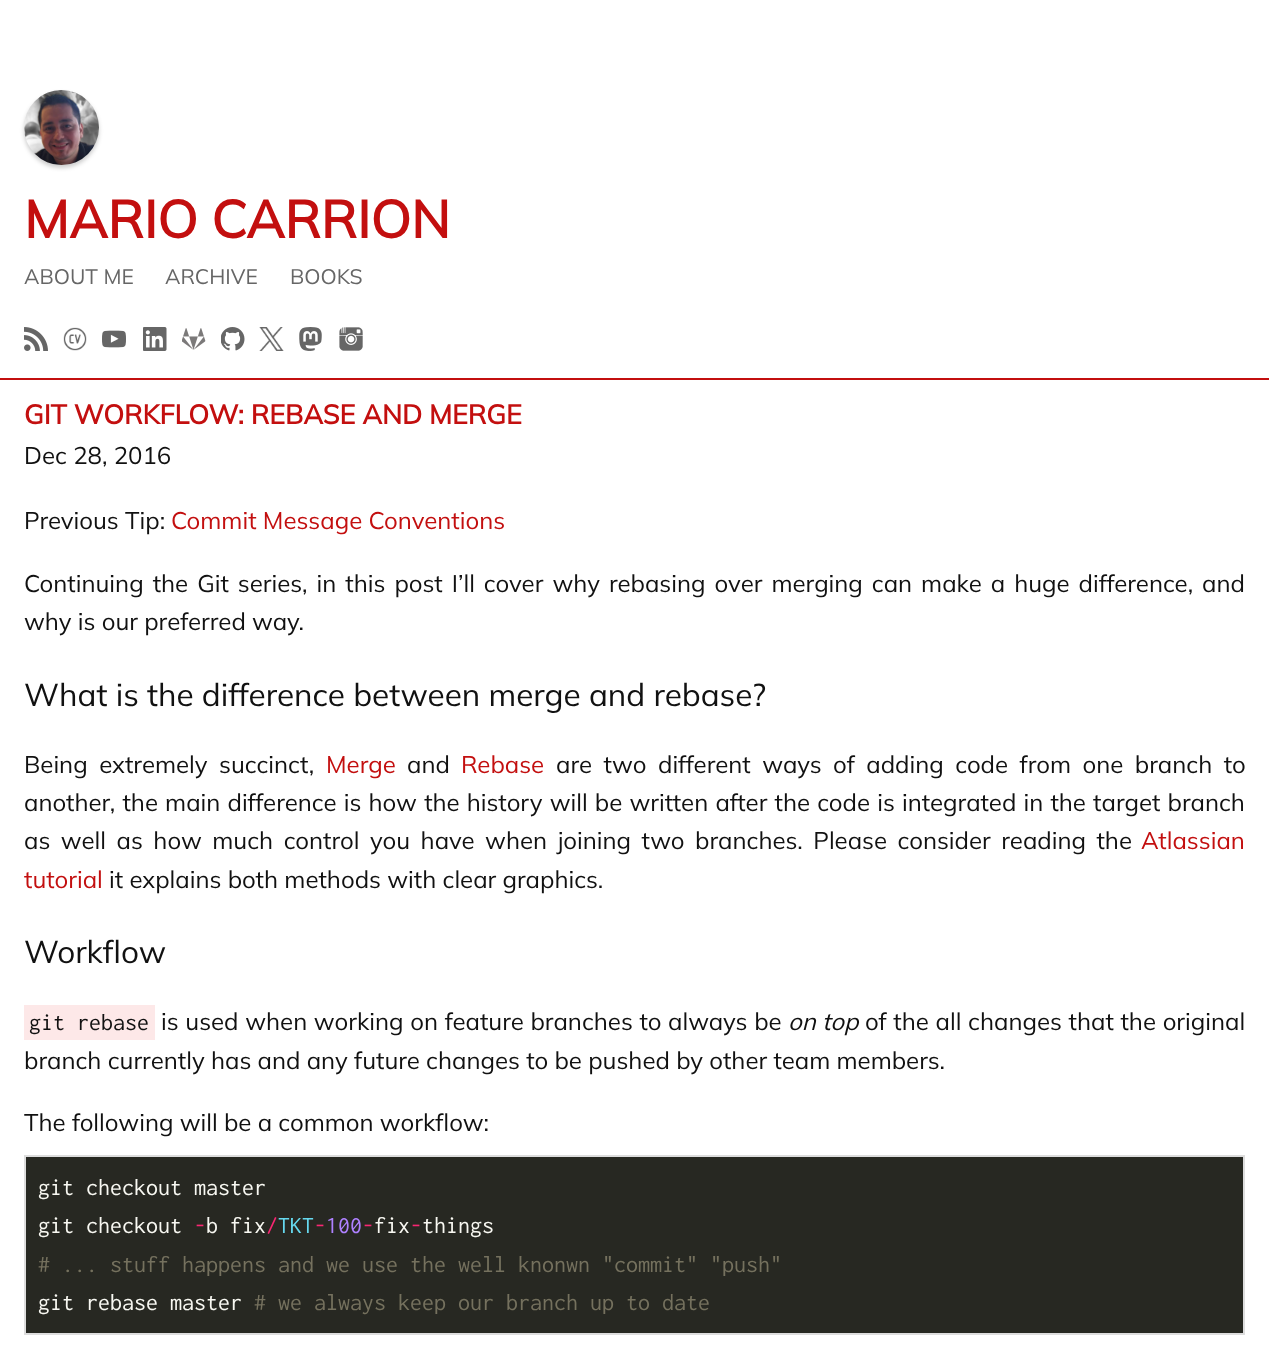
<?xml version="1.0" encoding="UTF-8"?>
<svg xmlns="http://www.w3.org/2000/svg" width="1269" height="1351">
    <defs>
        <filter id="blur1" x="-50%" y="-200%" width="200%" height="500%"><feGaussianBlur stdDeviation="2"/></filter>
    </defs>
    <rect width="100%" height="100%" fill="#FFFFFF"/>
    <rect x="24" y="93" width="75" height="75" rx="37.5" fill="#000000" fill-opacity="0.2" filter="url(#blur1)"/>
    <image x="24" y="90" width="75" height="75" href="img_01.png"/>
    <text x="24" y="238" font-family="Mulish" font-size="52.5" font-weight="700" letter-spacing="-0.1" fill="#C30F0F">MARIO CARRION</text>
    <text x="24" y="284" font-family="Mulish" font-size="21" font-weight="200" fill="#666666">ABOUT ME</text>
    <text x="165" y="284" font-family="Mulish" font-size="21" font-weight="200" fill="#666666">ARCHIVE</text>
    <text x="290" y="284" font-family="Mulish" font-size="21" font-weight="200" fill="#666666">BOOKS</text>
    <rect x="0" y="378" width="1269" height="2" fill="#C30F0F"/>
    <image x="24" y="327" width="24" height="24" href="img_02.png"/>
    <image x="63" y="327" width="24" height="24" href="img_03.png"/>
    <image x="102" y="330" width="24" height="18" href="img_04.png"/>
    <image x="143" y="327" width="24" height="24" href="img_05.png"/>
    <image x="182" y="328" width="24" height="22" href="img_06.png"/>
    <image x="221" y="327" width="24" height="24" href="img_07.png"/>
    <image x="259" y="327" width="25" height="24" href="img_08.png"/>
    <image x="299" y="327" width="23" height="24" href="img_09.png"/>
    <image x="339" y="327" width="24" height="24" href="img_10.png"/>
    <text x="24" y="424" font-family="Mulish" font-size="27" font-weight="700" letter-spacing="-0.1" fill="#C30F0F">GIT WORKFLOW: REBASE AND MERGE</text>
    <text x="24" y="464" font-family="Mulish" font-size="24" font-weight="200" fill="#111111">Dec 28, 2016</text>
    <text x="24" y="529" font-family="Mulish" font-size="24" font-weight="200" fill="#111111">Previous Tip:</text>
    <text x="171" y="529" font-family="Mulish" font-size="24" font-weight="200" fill="#C30F0F">Commit Message Conventions</text>
    <text font-family="Mulish" font-size="24" font-weight="200" fill="#111111">
        <tspan x="24" y="592" word-spacing="2.75">Continuing the Git series, in this post I’ll cover why rebasing over merging can make a huge difference, and</tspan>
        <tspan x="24" y="630">why is our preferred way.</tspan>
    </text>
    <text x="24" y="706" font-family="Mulish" font-size="31.5" font-weight="200" fill="#111111">What is the difference between merge and rebase?</text>
    <text x="24" y="773" word-spacing="5.25" font-family="Mulish" font-size="24" font-weight="200" fill="#111111">Being extremely succinct,</text>
    <text x="326" y="773" font-family="Mulish" font-size="24" font-weight="200" fill="#C30F0F">Merge</text>
    <text x="407" y="773" font-family="Mulish" font-size="24" font-weight="200" fill="#111111">and</text>
    <text x="461" y="773" font-family="Mulish" font-size="24" font-weight="200" fill="#C30F0F">Rebase</text>
    <text x="556" y="773" word-spacing="5.25" font-family="Mulish" font-size="24" font-weight="200" fill="#111111">are two different ways of adding code from one branch to</text>
    <text font-family="Mulish" font-size="24" font-weight="200" fill="#111111">
        <tspan x="24" y="811" word-spacing="0.9">another, the main difference is how the history will be written after the code is integrated in the target branch</tspan>
        <tspan x="24" y="849" word-spacing="4.25">as well as how much control you have when joining two branches. Please consider reading the</tspan>
    </text>
    <text x="1141" y="849" font-family="Mulish" font-size="24" font-weight="200" fill="#C30F0F">Atlassian</text>
    <text x="24" y="888" font-family="Mulish" font-size="24" font-weight="200" fill="#C30F0F">tutorial</text>
    <text x="109" y="888" font-family="Mulish" font-size="24" font-weight="200" fill="#111111">it explains both methods with clear graphics.</text>
    <text x="24" y="963" font-family="Mulish" font-size="31.5" font-weight="200" fill="#111111">Workflow</text>
    <rect x="24" y="1005" width="131" height="35" fill="#FDE8E8"/>
    <text x="29" y="1030" font-family="Inconsolata" font-size="24" fill="#111111">git rebase</text>
    <text x="161" y="1030" word-spacing="0.4" font-family="Mulish" font-size="24" font-weight="200" fill="#111111">is used when working on feature branches to always be</text>
    <text x="788" y="1030" font-family="Mulish" font-size="24" font-weight="200" font-style="italic" fill="#111111">on top</text>
    <text x="865" y="1030" word-spacing="0.4" font-family="Mulish" font-size="24" font-weight="200" fill="#111111">of the all changes that the original</text>
    <text x="24" y="1069" font-family="Mulish" font-size="24" font-weight="200" fill="#111111">branch currently has and any future changes to be pushed by other team members.</text>
    <text x="24" y="1131" font-family="Mulish" font-size="24" font-weight="200" fill="#111111">The following will be a common workflow:</text>
    <rect x="25" y="1156" width="1219" height="178" fill="#272822" stroke="#DDDDDD" stroke-width="2"/>
    <text font-family="Inconsolata" font-size="24" fill="#F8F8F2">
        <tspan x="38" y="1195">git checkout master</tspan>
        <tspan x="38" y="1233">git checkout</tspan>
    </text>
    <text x="194" y="1233" font-family="Inconsolata" font-size="24" fill="#F92672">-</text>
    <text x="206" y="1233" font-family="Inconsolata" font-size="24" fill="#F8F8F2">b fix</text>
    <text x="266" y="1233" font-family="Inconsolata" font-size="24" fill="#F92672">/</text>
    <text x="278" y="1233" font-family="Inconsolata" font-size="24" fill="#66D9EF">TKT</text>
    <text x="314" y="1233" font-family="Inconsolata" font-size="24" fill="#F92672">-</text>
    <text x="326" y="1233" font-family="Inconsolata" font-size="24" fill="#AE81FF">100</text>
    <text x="362" y="1233" font-family="Inconsolata" font-size="24" fill="#F92672">-</text>
    <text x="374" y="1233" font-family="Inconsolata" font-size="24" fill="#F8F8F2">fix things</text>
    <text x="410" y="1233" font-family="Inconsolata" font-size="24" fill="#F92672">-</text>
    <text x="38" y="1272" font-family="Inconsolata" font-size="24" fill="#75715E"># ... stuff happens and we use the well knonwn "commit" "push"</text>
    <text x="38" y="1310" font-family="Inconsolata" font-size="24" fill="#F8F8F2">git rebase master</text>
    <text x="254" y="1310" font-family="Inconsolata" font-size="24" fill="#75715E"># we always keep our branch up to date</text>
</svg>
